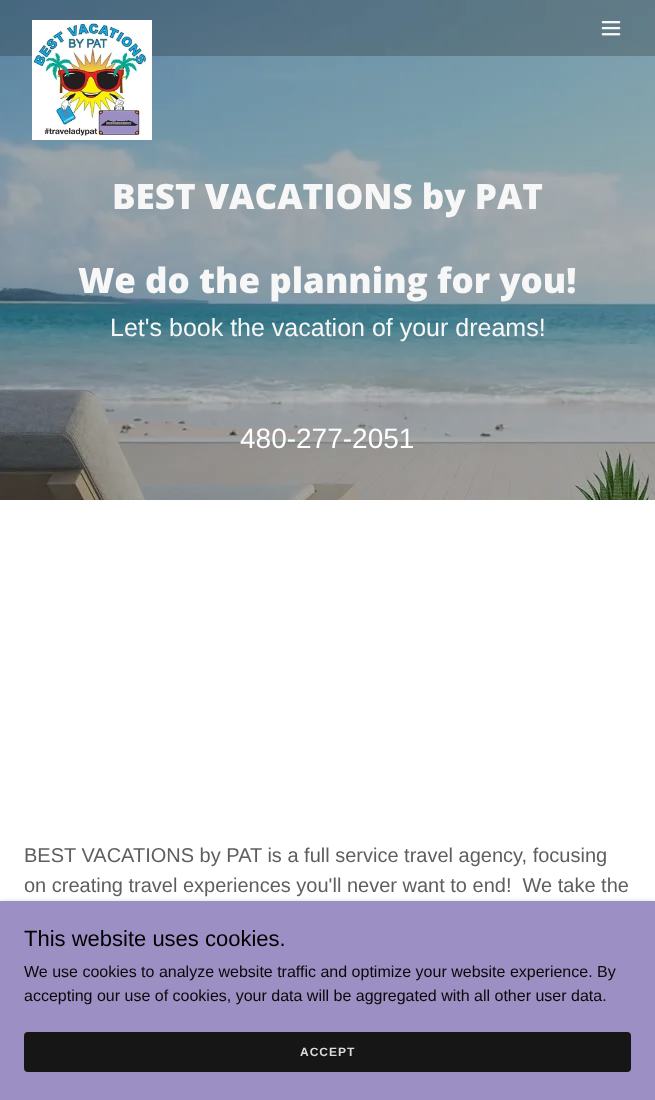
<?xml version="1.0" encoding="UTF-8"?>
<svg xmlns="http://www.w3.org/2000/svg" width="655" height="1100">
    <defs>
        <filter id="blur1" x="-50%" y="-200%" width="200%" height="500%"><feGaussianBlur stdDeviation="3"/></filter>
    </defs>
    <rect width="100%" height="100%" fill="#FFFFFF"/>
    <image x="0" y="0" width="655" height="500" href="img_01.png"/>
    <rect x="0" y="0" width="655" height="56" fill="#161616" fill-opacity="0.25"/>
    <image x="32" y="20" width="120" height="120" href="img_02.png"/>
    <image x="601" y="21" width="20" height="15" href="img_03.png"/>
    <text x="112" y="209" font-family="Open Sans" font-size="35" font-weight="800" fill="#F7F7F7">BEST VACATIONS by PAT</text>
    <text x="78" y="293" font-family="Open Sans" font-size="35" font-weight="800" fill="#F7F7F7">We do the planning for you!</text>
    <text x="110" y="336" font-family="Liberation Sans" font-size="25" fill="#F7F7F7">Let's book the vacation of your dreams!</text>
    <text x="240" y="448" font-family="Liberation Sans" font-size="28" fill="#FFFFFF">480-277-2051</text>
    <text font-family="Liberation Sans" font-size="20" fill="#5E5E5E" xml:space="preserve"><tspan x="24" y="862">BEST VACATIONS by PAT is a full service travel agency, focusing</tspan><tspan x="24" y="892">on creating travel experiences you'll never want to end!  We take the</tspan></text>
    <rect x="0" y="903" width="655" height="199" fill="#000000" fill-opacity="0.3" filter="url(#blur1)"/>
    <rect x="0" y="901" width="655" height="199" fill="#9C8FC3"/>
    <text x="24" y="946" font-family="Liberation Sans" font-size="22" fill="#000000">This website uses cookies.</text>
    <text font-family="Liberation Sans" font-size="16" fill="#080808">
        <tspan x="24" y="977">We use cookies to analyze website traffic and optimize your website experience. By</tspan>
        <tspan x="24" y="1001">accepting our use of cookies, your data will be aggregated with all other user data.</tspan>
    </text>
    <rect x="24" y="1032" width="607" height="40" rx="4" fill="#161616"/>
    <text x="300" y="1056" font-family="Liberation Sans" font-size="12" font-weight="700" letter-spacing="1" fill="#DBDBDB">ACCEPT</text>
</svg>
